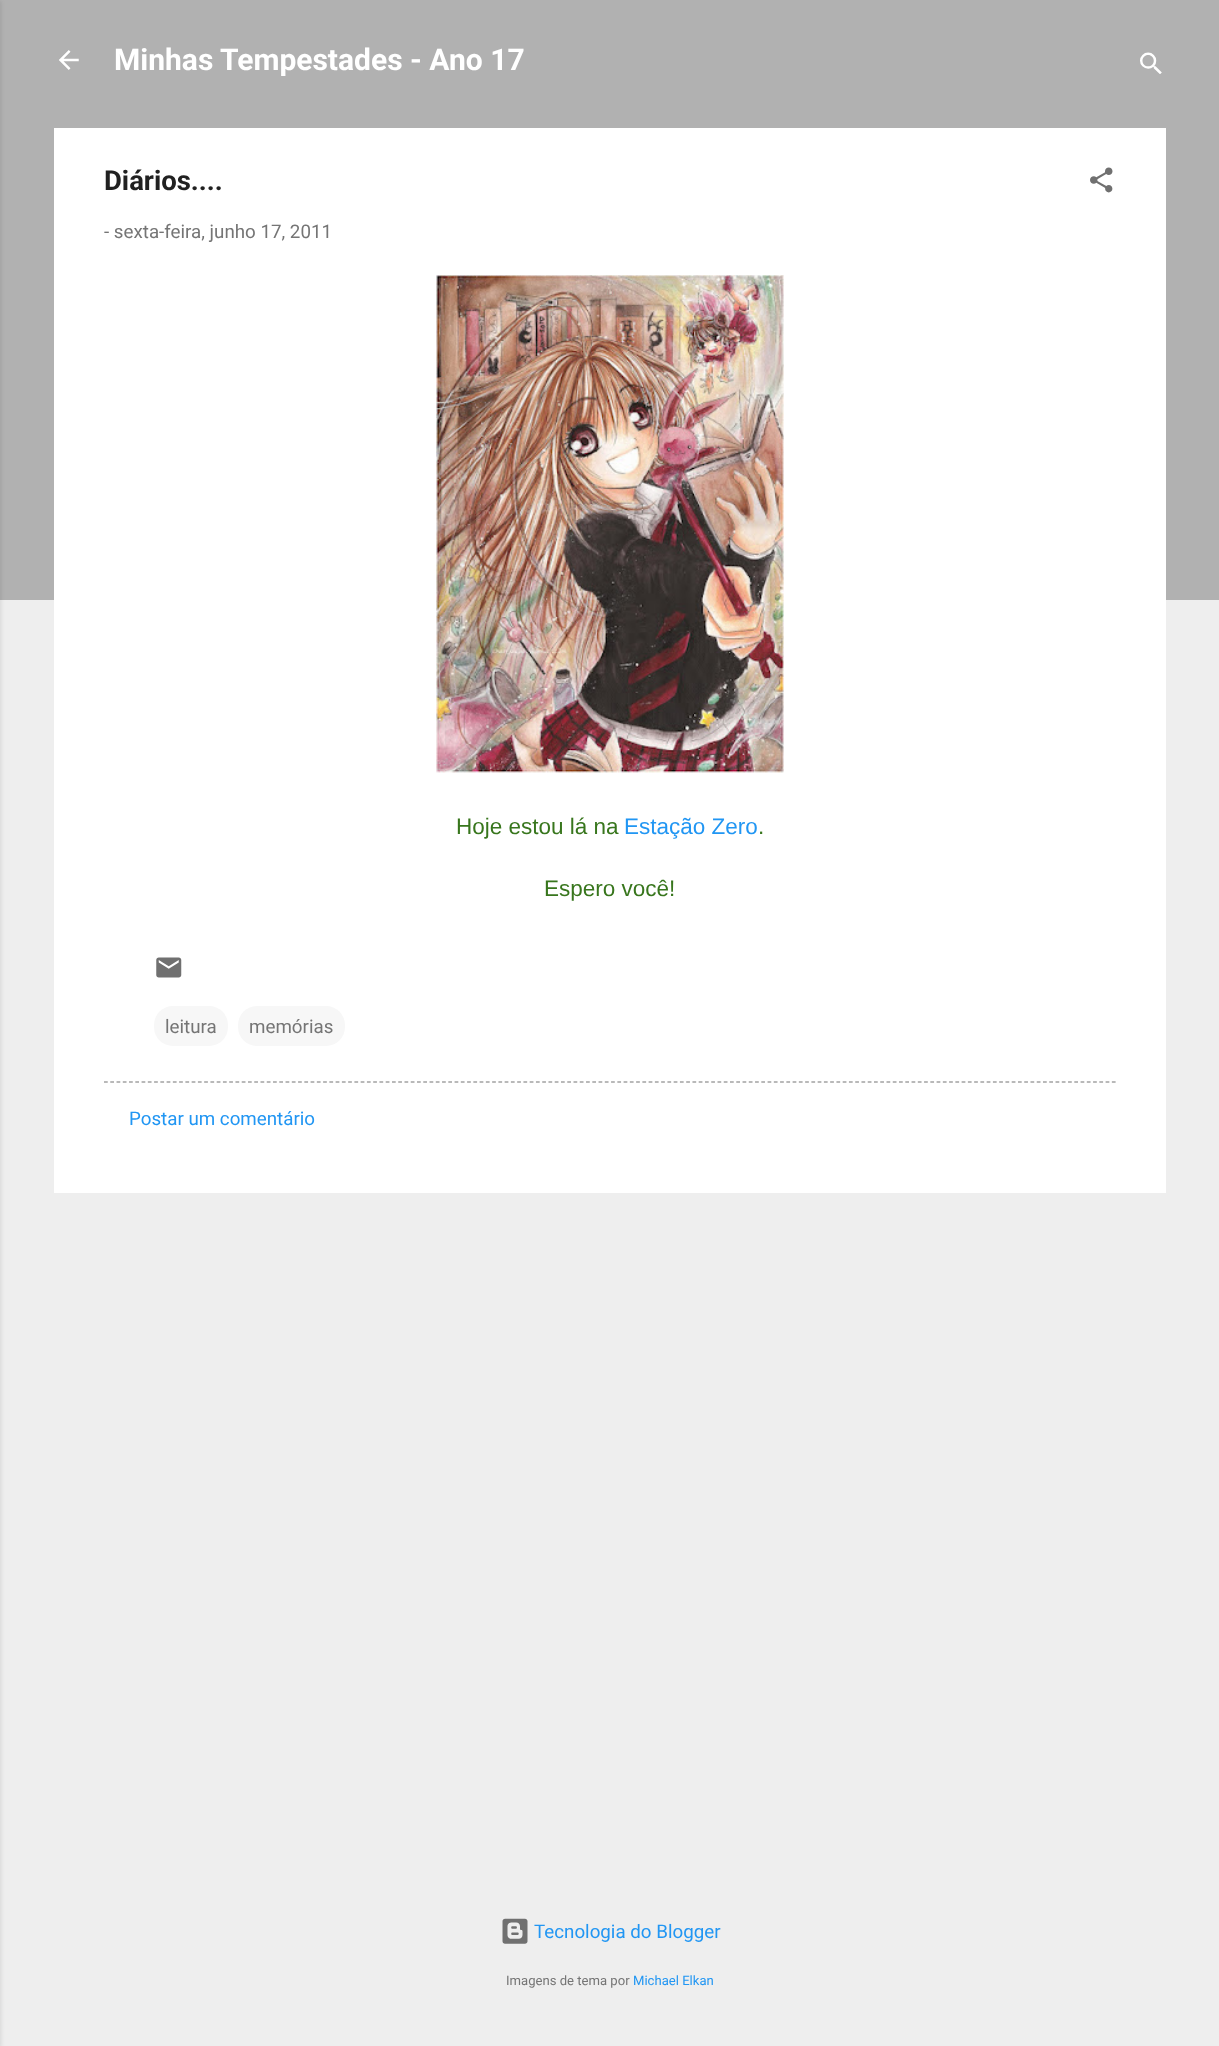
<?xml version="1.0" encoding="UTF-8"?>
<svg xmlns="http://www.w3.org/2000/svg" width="1219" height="2046">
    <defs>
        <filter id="blur1" x="-50%" y="-200%" width="200%" height="500%"><feGaussianBlur stdDeviation="2"/></filter>
    </defs>
    <rect width="100%" height="100%" fill="#EEEEEE"/>
    <rect x="0" y="0" width="1219" height="600" fill="#B1B1B1"/>
    <rect x="-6" y="1" width="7" height="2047" fill="#000000" fill-opacity="0.1" filter="url(#blur1)"/>
    <image x="59" y="50" width="20" height="20" href="img_01.png"/>
    <text x="114" y="70" font-family="Roboto" font-size="30" font-weight="700" fill="#FFFFFF">Minhas Tempestades - Ano 17</text>
    <image x="1140" y="52" width="22" height="22" href="img_02.png"/>
    <rect x="54" y="128" width="1112" height="1065" fill="#FFFFFF"/>
    <text x="104" y="190" font-family="Roboto" font-size="27.5" font-weight="700" fill="#212121">Diários....</text>
    <image x="1090" y="167" width="23" height="26" href="img_03.png"/>
    <text x="104" y="238" font-family="Roboto" font-size="18.75" fill="#757575">- sexta-feira, junho 17, 2011</text>
    <image x="436" y="275" width="348" height="498" href="img_04.png"/>
    <text x="456" y="834" font-family="Liberation Sans" font-size="22.5" fill="#38761D">Hoje estou lá na</text>
    <text x="624" y="834" font-family="Liberation Sans" font-size="22.5" fill="#2196F3">Estação Zero</text>
    <text x="758" y="834" font-family="Liberation Sans" font-size="22.5" fill="#38761D">.</text>
    <text x="544" y="896" font-family="Liberation Sans" font-size="22.5" fill="#38761D">Espero você!</text>
    <image x="156" y="957" width="26" height="21" href="img_05.png"/>
    <rect x="154" y="1006" width="74" height="40" rx="19" fill="#F7F7F7"/>
    <text x="165" y="1033" font-family="Roboto" font-size="18.75" fill="#757575">leitura</text>
    <rect x="238" y="1006" width="107" height="40" rx="19" fill="#F7F7F7"/>
    <text x="249" y="1033" font-family="Roboto" font-size="18.75" fill="#757575">memórias</text>
    <path d="M 104 1082 H 1116" fill="none" stroke="#757575" stroke-width="1.2" stroke-dasharray="3.75 2.51"/>
    <text x="129" y="1125" font-family="Roboto" font-size="18.75" fill="#2196F3">Postar um comentário</text>
    <image x="502" y="1918" width="26" height="26" href="img_06.png"/>
    <text x="534" y="1938" font-family="Roboto" font-size="18.75" fill="#2196F3">Tecnologia do Blogger</text>
    <text x="506" y="1985" font-family="Roboto" font-size="13.1" fill="#757575">Imagens de tema por</text>
    <text x="633" y="1985" font-family="Roboto" font-size="13.1" fill="#2196F3">Michael Elkan</text>
</svg>
